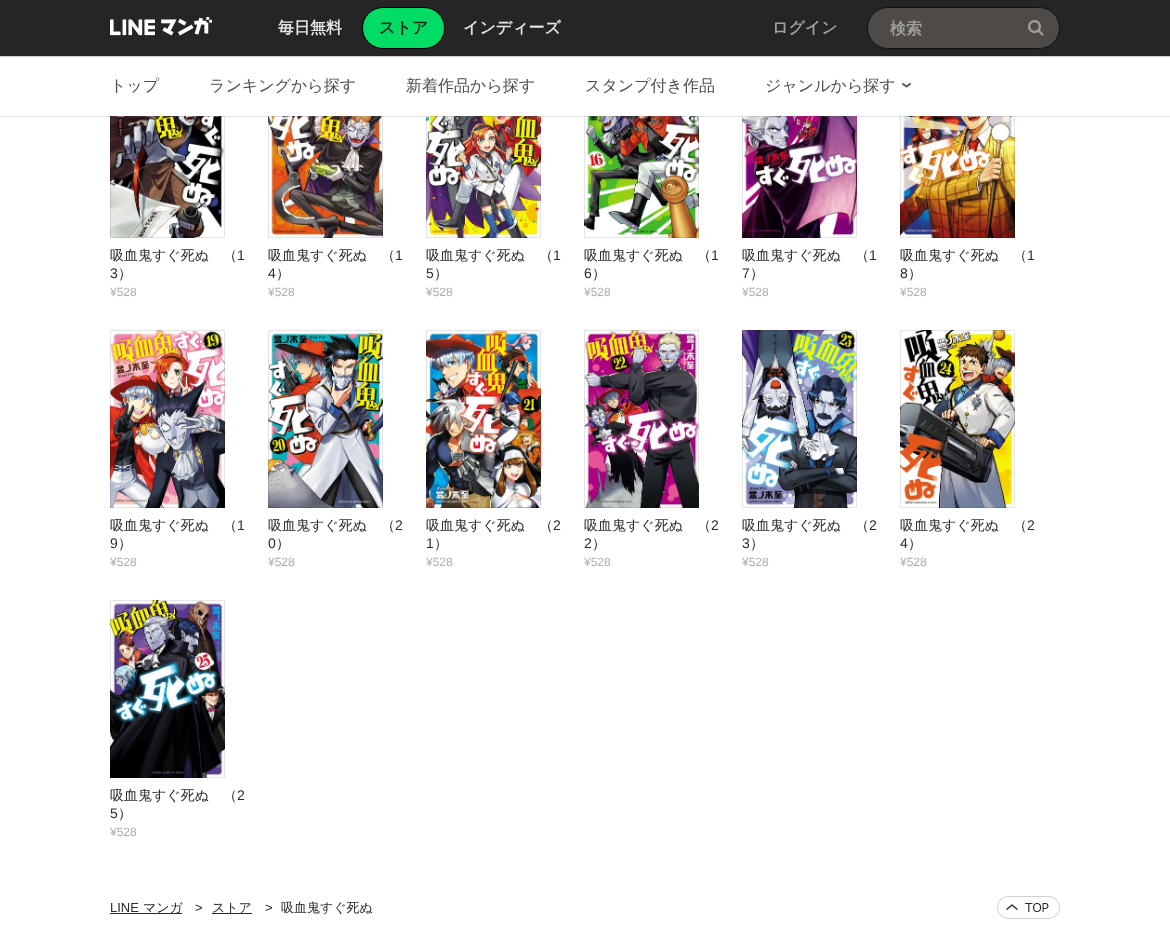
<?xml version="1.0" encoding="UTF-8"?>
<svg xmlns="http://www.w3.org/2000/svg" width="1170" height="939">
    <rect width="100%" height="100%" fill="#FFFFFF"/>
    <rect x="0" y="0" width="1170" height="56" fill="#262525"/>
    <image x="110" y="17" width="102" height="19" href="img_01.png"/>
    <text x="278" y="33" font-family="WenQuanYi Zen Hei" font-size="16" font-weight="700" fill="#E3E3E3">毎日無料</text>
    <rect x="362.5" y="7.5" width="82" height="41" rx="20.5" fill="#00DC64" stroke="#000000"/>
    <text x="379" y="33" font-family="WenQuanYi Zen Hei" font-size="16" font-weight="700" fill="#262525">ストア</text>
    <text x="463" y="33" font-family="WenQuanYi Zen Hei" font-size="16" font-weight="700" fill="#E3E3E3">インディーズ</text>
    <text x="772" y="33" font-family="WenQuanYi Zen Hei" font-size="16" font-weight="700" fill="#A19F9A">ログイン</text>
    <rect x="867.5" y="7.5" width="192" height="41" rx="20.5" fill="#4D4A48" stroke="#121111"/>
    <text x="890" y="34" font-family="WenQuanYi Zen Hei" font-size="16" font-weight="700" fill="#A19F9A">検索</text>
    <image x="1028" y="20" width="16" height="16" href="img_02.png"/>
    <rect x="0" y="56" width="1170" height="1" fill="#CCCCCC"/>
    <image x="110" y="116" width="115" height="122" href="img_04.png"/>
    <rect x="110.5" y="60.5" width="114" height="177" fill="none" stroke="#000000" stroke-opacity="0.1"/>
    <image x="268" y="116" width="115" height="122" href="img_05.png"/>
    <rect x="268.5" y="60.5" width="114" height="177" fill="none" stroke="#000000" stroke-opacity="0.1"/>
    <image x="426" y="116" width="115" height="122" href="img_06.png"/>
    <rect x="426.5" y="60.5" width="114" height="177" fill="none" stroke="#000000" stroke-opacity="0.1"/>
    <image x="584" y="116" width="115" height="122" href="img_07.png"/>
    <rect x="584.5" y="60.5" width="114" height="177" fill="none" stroke="#000000" stroke-opacity="0.1"/>
    <image x="742" y="116" width="115" height="122" href="img_08.png"/>
    <rect x="742.5" y="60.5" width="114" height="177" fill="none" stroke="#000000" stroke-opacity="0.1"/>
    <image x="900" y="116" width="115" height="122" href="img_09.png"/>
    <rect x="900.5" y="60.5" width="114" height="177" fill="none" stroke="#000000" stroke-opacity="0.1"/>
    <rect x="110" y="60" width="905" height="56" fill="#FFFFFF"/>
    <text x="110" y="91" font-family="WenQuanYi Zen Hei" font-size="16" font-weight="500" fill="#4D4D4D">トップ</text>
    <text x="209" y="91" font-family="WenQuanYi Zen Hei" font-size="16" font-weight="500" fill="#4D4D4D">ランキングから探す</text>
    <text x="406" y="91" font-family="WenQuanYi Zen Hei" font-size="16" font-weight="500" fill="#4D4D4D">新着作品から探す</text>
    <text x="585" y="91" font-family="WenQuanYi Zen Hei" font-size="16" font-weight="500" fill="#4D4D4D">スタンプ付き作品</text>
    <text x="765" y="91" font-family="WenQuanYi Zen Hei" font-size="16" font-weight="500" fill="#4D4D4D">ジャンルから探す</text>
    <image x="902" y="83" width="9" height="5" href="img_03.png"/>
    <rect x="0" y="116" width="1170" height="1" fill="#6F6B6B" fill-opacity="0.2"/>
    <text x="110" y="260" font-family="WenQuanYi Zen Hei" font-size="14" font-weight="500" fill="#2B2B2A">吸血鬼すぐ死ぬ　（</text>
    <text x="237" y="260" font-family="Liberation Sans" font-size="14" fill="#2B2B2A">1</text>
    <text x="110" y="278" font-family="Liberation Sans" font-size="14" fill="#2B2B2A">3</text>
    <text x="118" y="278" font-family="WenQuanYi Zen Hei" font-size="14" font-weight="500" fill="#2B2B2A">）</text>
    <text x="110" y="296" font-family="Liberation Sans" font-size="12" fill="#ACADAE">¥528</text>
    <text x="268" y="260" font-family="WenQuanYi Zen Hei" font-size="14" font-weight="500" fill="#2B2B2A">吸血鬼すぐ死ぬ　（</text>
    <text x="395" y="260" font-family="Liberation Sans" font-size="14" fill="#2B2B2A">1</text>
    <text x="268" y="278" font-family="Liberation Sans" font-size="14" fill="#2B2B2A">4</text>
    <text x="276" y="278" font-family="WenQuanYi Zen Hei" font-size="14" font-weight="500" fill="#2B2B2A">）</text>
    <text x="268" y="296" font-family="Liberation Sans" font-size="12" fill="#ACADAE">¥528</text>
    <text x="426" y="260" font-family="WenQuanYi Zen Hei" font-size="14" font-weight="500" fill="#2B2B2A">吸血鬼すぐ死ぬ　（</text>
    <text x="553" y="260" font-family="Liberation Sans" font-size="14" fill="#2B2B2A">1</text>
    <text x="426" y="278" font-family="Liberation Sans" font-size="14" fill="#2B2B2A">5</text>
    <text x="434" y="278" font-family="WenQuanYi Zen Hei" font-size="14" font-weight="500" fill="#2B2B2A">）</text>
    <text x="426" y="296" font-family="Liberation Sans" font-size="12" fill="#ACADAE">¥528</text>
    <text x="584" y="260" font-family="WenQuanYi Zen Hei" font-size="14" font-weight="500" fill="#2B2B2A">吸血鬼すぐ死ぬ　（</text>
    <text x="711" y="260" font-family="Liberation Sans" font-size="14" fill="#2B2B2A">1</text>
    <text x="584" y="278" font-family="Liberation Sans" font-size="14" fill="#2B2B2A">6</text>
    <text x="592" y="278" font-family="WenQuanYi Zen Hei" font-size="14" font-weight="500" fill="#2B2B2A">）</text>
    <text x="584" y="296" font-family="Liberation Sans" font-size="12" fill="#ACADAE">¥528</text>
    <text x="742" y="260" font-family="WenQuanYi Zen Hei" font-size="14" font-weight="500" fill="#2B2B2A">吸血鬼すぐ死ぬ　（</text>
    <text x="869" y="260" font-family="Liberation Sans" font-size="14" fill="#2B2B2A">1</text>
    <text x="742" y="278" font-family="Liberation Sans" font-size="14" fill="#2B2B2A">7</text>
    <text x="750" y="278" font-family="WenQuanYi Zen Hei" font-size="14" font-weight="500" fill="#2B2B2A">）</text>
    <text x="742" y="296" font-family="Liberation Sans" font-size="12" fill="#ACADAE">¥528</text>
    <text x="900" y="260" font-family="WenQuanYi Zen Hei" font-size="14" font-weight="500" fill="#2B2B2A">吸血鬼すぐ死ぬ　（</text>
    <text x="1027" y="260" font-family="Liberation Sans" font-size="14" fill="#2B2B2A">1</text>
    <text x="900" y="278" font-family="Liberation Sans" font-size="14" fill="#2B2B2A">8</text>
    <text x="908" y="278" font-family="WenQuanYi Zen Hei" font-size="14" font-weight="500" fill="#2B2B2A">）</text>
    <text x="900" y="296" font-family="Liberation Sans" font-size="12" fill="#ACADAE">¥528</text>
    <image x="110" y="330" width="115" height="178" href="img_10.png"/>
    <rect x="110.5" y="330.5" width="114" height="177" fill="none" stroke="#000000" stroke-opacity="0.1"/>
    <text x="110" y="530" font-family="WenQuanYi Zen Hei" font-size="14" font-weight="500" fill="#2B2B2A">吸血鬼すぐ死ぬ　（</text>
    <text x="237" y="530" font-family="Liberation Sans" font-size="14" fill="#2B2B2A">1</text>
    <text x="110" y="548" font-family="Liberation Sans" font-size="14" fill="#2B2B2A">9</text>
    <text x="118" y="548" font-family="WenQuanYi Zen Hei" font-size="14" font-weight="500" fill="#2B2B2A">）</text>
    <text x="110" y="566" font-family="Liberation Sans" font-size="12" fill="#ACADAE">¥528</text>
    <image x="268" y="330" width="115" height="178" href="img_11.png"/>
    <rect x="268.5" y="330.5" width="114" height="177" fill="none" stroke="#000000" stroke-opacity="0.1"/>
    <text x="268" y="530" font-family="WenQuanYi Zen Hei" font-size="14" font-weight="500" fill="#2B2B2A">吸血鬼すぐ死ぬ　（</text>
    <text x="395" y="530" font-family="Liberation Sans" font-size="14" fill="#2B2B2A">2</text>
    <text x="268" y="548" font-family="Liberation Sans" font-size="14" fill="#2B2B2A">0</text>
    <text x="276" y="548" font-family="WenQuanYi Zen Hei" font-size="14" font-weight="500" fill="#2B2B2A">）</text>
    <text x="268" y="566" font-family="Liberation Sans" font-size="12" fill="#ACADAE">¥528</text>
    <image x="426" y="330" width="115" height="178" href="img_12.png"/>
    <rect x="426.5" y="330.5" width="114" height="177" fill="none" stroke="#000000" stroke-opacity="0.1"/>
    <text x="426" y="530" font-family="WenQuanYi Zen Hei" font-size="14" font-weight="500" fill="#2B2B2A">吸血鬼すぐ死ぬ　（</text>
    <text x="553" y="530" font-family="Liberation Sans" font-size="14" fill="#2B2B2A">2</text>
    <text x="426" y="548" font-family="Liberation Sans" font-size="14" fill="#2B2B2A">1</text>
    <text x="434" y="548" font-family="WenQuanYi Zen Hei" font-size="14" font-weight="500" fill="#2B2B2A">）</text>
    <text x="426" y="566" font-family="Liberation Sans" font-size="12" fill="#ACADAE">¥528</text>
    <image x="584" y="330" width="115" height="178" href="img_13.png"/>
    <rect x="584.5" y="330.5" width="114" height="177" fill="none" stroke="#000000" stroke-opacity="0.1"/>
    <text x="584" y="530" font-family="WenQuanYi Zen Hei" font-size="14" font-weight="500" fill="#2B2B2A">吸血鬼すぐ死ぬ　（</text>
    <text x="711" y="530" font-family="Liberation Sans" font-size="14" fill="#2B2B2A">2</text>
    <text x="584" y="548" font-family="Liberation Sans" font-size="14" fill="#2B2B2A">2</text>
    <text x="592" y="548" font-family="WenQuanYi Zen Hei" font-size="14" font-weight="500" fill="#2B2B2A">）</text>
    <text x="584" y="566" font-family="Liberation Sans" font-size="12" fill="#ACADAE">¥528</text>
    <image x="742" y="330" width="115" height="178" href="img_14.png"/>
    <rect x="742.5" y="330.5" width="114" height="177" fill="none" stroke="#000000" stroke-opacity="0.1"/>
    <text x="742" y="530" font-family="WenQuanYi Zen Hei" font-size="14" font-weight="500" fill="#2B2B2A">吸血鬼すぐ死ぬ　（</text>
    <text x="869" y="530" font-family="Liberation Sans" font-size="14" fill="#2B2B2A">2</text>
    <text x="742" y="548" font-family="Liberation Sans" font-size="14" fill="#2B2B2A">3</text>
    <text x="750" y="548" font-family="WenQuanYi Zen Hei" font-size="14" font-weight="500" fill="#2B2B2A">）</text>
    <text x="742" y="566" font-family="Liberation Sans" font-size="12" fill="#ACADAE">¥528</text>
    <image x="900" y="330" width="115" height="178" href="img_15.png"/>
    <rect x="900.5" y="330.5" width="114" height="177" fill="none" stroke="#000000" stroke-opacity="0.1"/>
    <text x="900" y="530" font-family="WenQuanYi Zen Hei" font-size="14" font-weight="500" fill="#2B2B2A">吸血鬼すぐ死ぬ　（</text>
    <text x="1027" y="530" font-family="Liberation Sans" font-size="14" fill="#2B2B2A">2</text>
    <text x="900" y="548" font-family="Liberation Sans" font-size="14" fill="#2B2B2A">4</text>
    <text x="908" y="548" font-family="WenQuanYi Zen Hei" font-size="14" font-weight="500" fill="#2B2B2A">）</text>
    <text x="900" y="566" font-family="Liberation Sans" font-size="12" fill="#ACADAE">¥528</text>
    <image x="110" y="600" width="115" height="178" href="img_16.png"/>
    <rect x="110.5" y="600.5" width="114" height="177" fill="none" stroke="#000000" stroke-opacity="0.1"/>
    <text x="110" y="800" font-family="WenQuanYi Zen Hei" font-size="14" font-weight="500" fill="#2B2B2A">吸血鬼すぐ死ぬ　（</text>
    <text x="237" y="800" font-family="Liberation Sans" font-size="14" fill="#2B2B2A">2</text>
    <text x="110" y="818" font-family="Liberation Sans" font-size="14" fill="#2B2B2A">5</text>
    <text x="118" y="818" font-family="WenQuanYi Zen Hei" font-size="14" font-weight="500" fill="#2B2B2A">）</text>
    <text x="110" y="836" font-family="Liberation Sans" font-size="12" fill="#ACADAE">¥528</text>
    <text x="110" y="912" font-family="Liberation Sans" font-size="13" fill="#2B2B2A">LINE</text>
    <rect x="110" y="913" width="72" height="1" fill="#2B2B2A"/>
    <text x="143" y="912" font-family="WenQuanYi Zen Hei" font-size="13" font-weight="500" fill="#2B2B2A">マンガ</text>
    <text x="195" y="912" font-family="Liberation Sans" font-size="13" fill="#2B2B2A">&gt;</text>
    <rect x="212" y="913" width="40" height="1" fill="#2B2B2A"/>
    <text x="212" y="912" font-family="WenQuanYi Zen Hei" font-size="13" font-weight="500" fill="#2B2B2A">ストア</text>
    <text x="265" y="912" font-family="Liberation Sans" font-size="13" fill="#2B2B2A">&gt;</text>
    <text x="281" y="912" font-family="WenQuanYi Zen Hei" font-size="13" font-weight="500" fill="#2B2B2A">吸血鬼すぐ死ぬ</text>
    <image x="997" y="896" width="63" height="23" href="img_17.png"/>
</svg>
